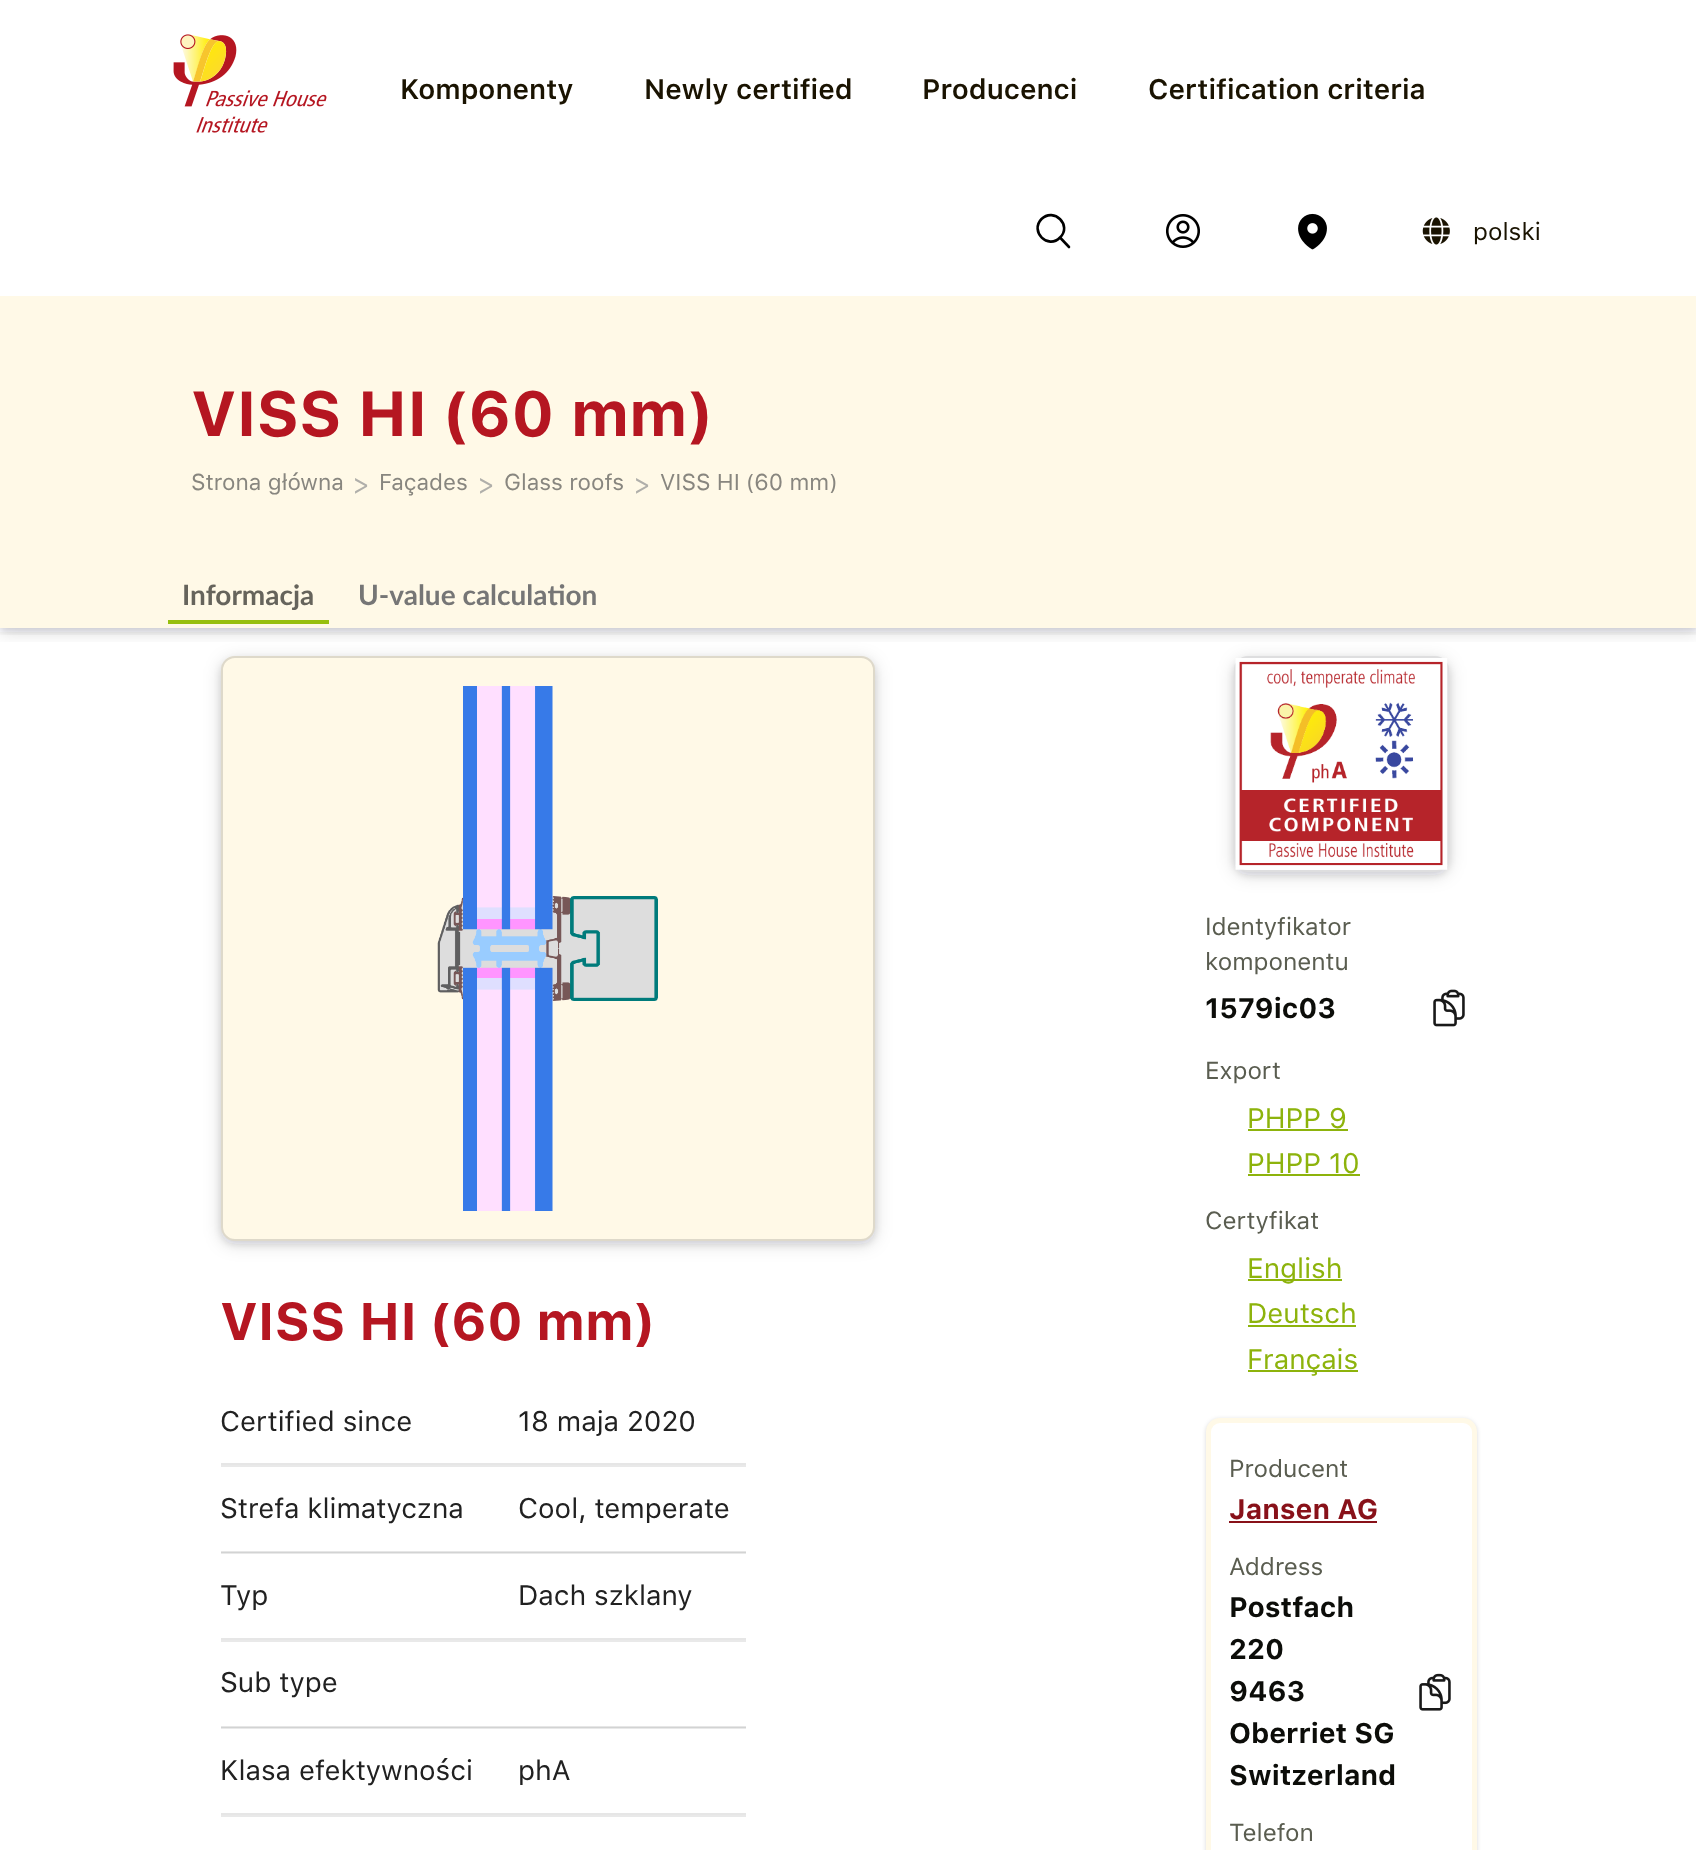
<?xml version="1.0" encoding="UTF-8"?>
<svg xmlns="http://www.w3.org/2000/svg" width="1696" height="1850">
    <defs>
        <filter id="blur1" x="-50%" y="-200%" width="200%" height="500%"><feGaussianBlur stdDeviation="9"/></filter>
        <filter id="blur2" x="-50%" y="-200%" width="200%" height="500%"><feGaussianBlur stdDeviation="3.5"/></filter>
        <clipPath id="clip1"><rect x="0" y="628" width="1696" height="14"/></clipPath>
        <clipPath id="clip2"><rect x="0" y="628" width="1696" height="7"/></clipPath>
        <filter id="blur3" x="-50%" y="-200%" width="200%" height="500%"><feGaussianBlur stdDeviation="2"/></filter>
    </defs>
    <rect width="100%" height="100%" fill="#FFFFFF"/>
    <rect x="221" y="1728" width="525" height="1" fill="#E9E9E9"/>
    <rect x="221" y="1553" width="525" height="1" fill="#E9E9E9"/>
    <rect x="221" y="660" width="654" height="584" rx="14" fill="#222426" fill-opacity="0.15" filter="url(#blur1)"/>
    <rect x="221" y="660" width="654" height="584" rx="14" fill="#222426" fill-opacity="0.12" filter="url(#blur2)"/>
    <rect x="221" y="656" width="654" height="585" rx="14" fill="#FFF9E7"/>
    <rect x="222" y="657" width="652" height="583" rx="13" fill="none" stroke="#222426" stroke-opacity="0.15" stroke-width="2"/>
    <rect x="1234" y="660" width="215" height="215" rx="14" fill="#222426" fill-opacity="0.15" filter="url(#blur1)"/>
    <rect x="1234" y="660" width="215" height="215" rx="14" fill="#222426" fill-opacity="0.12" filter="url(#blur2)"/>
    <rect x="1234" y="656" width="215" height="216" rx="14" fill="#FFFFFF"/>
    <rect x="1235" y="657" width="213" height="214" rx="13" fill="none" stroke="#222426" stroke-opacity="0.15" stroke-width="2"/>
    <image x="1235" y="658" width="213" height="212" href="img_06.png"/>
    <g clip-path="url(#clip1)">
        <rect x="0" y="4" width="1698" height="628" fill="#222426" fill-opacity="0.15" filter="url(#blur1)"/>
    </g>
    <g clip-path="url(#clip2)">
        <rect x="0" y="4" width="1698" height="628" fill="#222426" fill-opacity="0.12" filter="url(#blur2)"/>
    </g>
    <image x="173" y="34" width="154" height="99" href="img_01.png"/>
    <text x="400" y="99" font-family="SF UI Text" font-size="28" font-weight="600" fill="#1A1301">Komponenty</text>
    <text x="644" y="99" font-family="SF UI Text" font-size="28" font-weight="600" fill="#1A1301">Newly certified</text>
    <text x="922" y="99" font-family="SF UI Text" font-size="28" font-weight="600" fill="#1A1301">Producenci</text>
    <text x="1148" y="99" font-family="SF UI Text" font-size="28" font-weight="600" fill="#1A1301">Certification criteria</text>
    <path d="M 1069 247 L 1060 237.5 M 1060 237.5 C 1072.5 225.5 1054 207 1041.5 219 C 1029.5 231.5 1048 250 1060 237.5 Z" fill="none" stroke="#000000" stroke-width="2.6" stroke-linecap="round" stroke-linejoin="round"/>
    <image x="1166" y="214" width="34" height="34" href="img_02.png"/>
    <image x="1298" y="213" width="29" height="37" href="img_03.png"/>
    <image x="1422" y="217" width="28" height="28" href="img_04.png"/>
    <text x="1473" y="240" font-family="SF UI Text" font-size="24.5" fill="#1A1301">polski</text>
    <rect x="0" y="296" width="1696" height="332" fill="#FFF9E7"/>
    <text x="191" y="436" font-family="SF UI Text" font-size="63" font-weight="700" fill="#B51621">VISS HI (60 mm)</text>
    <text x="191" y="490" font-family="SF UI Text" font-size="22.75" fill="#88867F">Strona główna</text>
    <text x="352" y="494" font-family="SF UI Text" font-size="28" fill="#B0AFAA">&gt;</text>
    <text x="379" y="490" font-family="SF UI Text" font-size="22.75" fill="#88867F">Façades</text>
    <text x="477" y="494" font-family="SF UI Text" font-size="28" fill="#B0AFAA">&gt;</text>
    <text x="504" y="490" font-family="SF UI Text" font-size="22.75" fill="#88867F">Glass roofs</text>
    <text x="633" y="494" font-family="SF UI Text" font-size="28" fill="#B0AFAA">&gt;</text>
    <text x="660" y="490" font-family="SF UI Text" font-size="22.75" fill="#88867F">VISS HI (60 mm)</text>
    <rect x="168" y="620" width="161" height="4" fill="#97BF0D"/>
    <text x="182" y="605" font-family="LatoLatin" font-size="28" font-weight="700" fill="#66645C">Informacja</text>
    <text x="358" y="605" font-family="LatoLatin" font-size="28" font-weight="700" fill="#767676">U-value calculation</text>
    <image x="437" y="686" width="221" height="525" href="img_05.png"/>
    <text x="220" y="1340" font-family="SF UI Text" font-size="52.5" font-weight="700" fill="#B51621">VISS HI (60 mm)</text>
    <rect x="221" y="1463" width="525" height="2" fill="#E6E6E6"/>
    <text x="220" y="1431" font-family="SF UI Text" font-size="28" fill="#212121">Certified since</text>
    <text x="518" y="1431" font-family="SF UI Text" font-size="28" fill="#212121">18 maja 2020</text>
    <rect x="221" y="1551" width="525" height="1" fill="#E6E6E6"/>
    <rect x="221" y="1552" width="525" height="1" fill="#D2D3D3"/>
    <rect x="221" y="1465" width="525" height="2" fill="#E9E9E9"/>
    <text x="220" y="1518" font-family="SF UI Text" font-size="28" fill="#212121">Strefa klimatyczna</text>
    <text x="518" y="1518" font-family="SF UI Text" font-size="28" fill="#212121">Cool, temperate</text>
    <rect x="221" y="1638" width="525" height="2" fill="#E6E6E6"/>
    <text x="220" y="1605" font-family="SF UI Text" font-size="28" fill="#212121">Typ</text>
    <text x="518" y="1605" font-family="SF UI Text" font-size="28" fill="#212121">Dach szklany</text>
    <rect x="221" y="1726" width="525" height="1" fill="#E6E6E6"/>
    <rect x="221" y="1727" width="525" height="1" fill="#D2D3D3"/>
    <rect x="221" y="1640" width="525" height="2" fill="#E9E9E9"/>
    <text x="220" y="1692" font-family="SF UI Text" font-size="28" fill="#212121">Sub type</text>
    <rect x="221" y="1813" width="525" height="2" fill="#E6E6E6"/>
    <text x="220" y="1780" font-family="SF UI Text" font-size="28" fill="#212121">Klasa efektywności</text>
    <text x="518" y="1780" font-family="SF UI Text" font-size="28" fill="#212121">phA</text>
    <rect x="221" y="1815" width="525" height="2" fill="#E9E9E9"/>
    <text font-family="SF UI Text" font-size="24.5" fill="#5A5D50">
        <tspan x="1205" y="935">Identyfikator</tspan>
        <tspan x="1205" y="970">komponentu</tspan>
    </text>
    <text x="1205" y="1018" font-family="SF UI Text" font-size="28" font-weight="700" fill="#0C0D09">1579ic03</text>
    <image x="1433" y="989" width="32" height="38" href="img_07.png"/>
    <text x="1205" y="1079" font-family="SF UI Text" font-size="24.5" fill="#5A5D50">Export</text>
    <text x="1247" y="1128" font-family="SF UI Text" font-size="28" fill="#8DB30C">PHPP 9</text>
    <rect x="1248" y="1129" width="100" height="2" fill="#8DB30C"/>
    <text x="1247" y="1173" font-family="SF UI Text" font-size="28" fill="#8DB30C">PHPP 10</text>
    <rect x="1248" y="1174" width="112" height="2" fill="#8DB30C"/>
    <text x="1205" y="1229" font-family="SF UI Text" font-size="24.5" fill="#5A5D50">Certyfikat</text>
    <rect x="1248" y="1279" width="94" height="2" fill="#8DB30C"/>
    <text font-family="SF UI Text" font-size="28" fill="#8DB30C">
        <tspan x="1247" y="1278">English</tspan>
        <tspan x="1247" y="1323">Deutsch</tspan>
    </text>
    <rect x="1248" y="1325" width="108" height="2" fill="#8DB30C"/>
    <rect x="1248" y="1370" width="110" height="2" fill="#8DB30C"/>
    <text x="1247" y="1369" font-family="SF UI Text" font-size="28" fill="#8DB30C">Français</text>
    <rect x="1206" y="1419" width="271" height="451" rx="14" fill="#222426" fill-opacity="0.15" filter="url(#blur3)"/>
    <rect x="1208.5" y="1420.5" width="266" height="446" rx="11.5" fill="#FFFFFF" stroke="#FFF9E7" stroke-width="5"/>
    <text x="1229" y="1477" font-family="SF UI Text" font-size="24.5" fill="#5A5D50">Producent</text>
    <text x="1229" y="1519" font-family="SF UI Text" font-size="28" font-weight="700" fill="#881119">Jansen AG</text>
    <rect x="1229" y="1521" width="148" height="2" fill="#881119"/>
    <text x="1229" y="1575" font-family="SF UI Text" font-size="24.5" fill="#5A5D50">Address</text>
    <text font-family="SF UI Text" font-size="28" font-weight="700" fill="#0C0D09">
        <tspan x="1229" y="1617">Postfach</tspan>
        <tspan x="1229" y="1659">220</tspan>
        <tspan x="1229" y="1701">9463</tspan>
        <tspan x="1229" y="1743">Oberriet SG</tspan>
        <tspan x="1229" y="1785">Switzerland</tspan>
    </text>
    <image x="1419" y="1673" width="32" height="38" href="img_08.png"/>
    <text x="1229" y="1841" font-family="SF UI Text" font-size="24.5" fill="#5A5D50">Telefon</text>
</svg>
